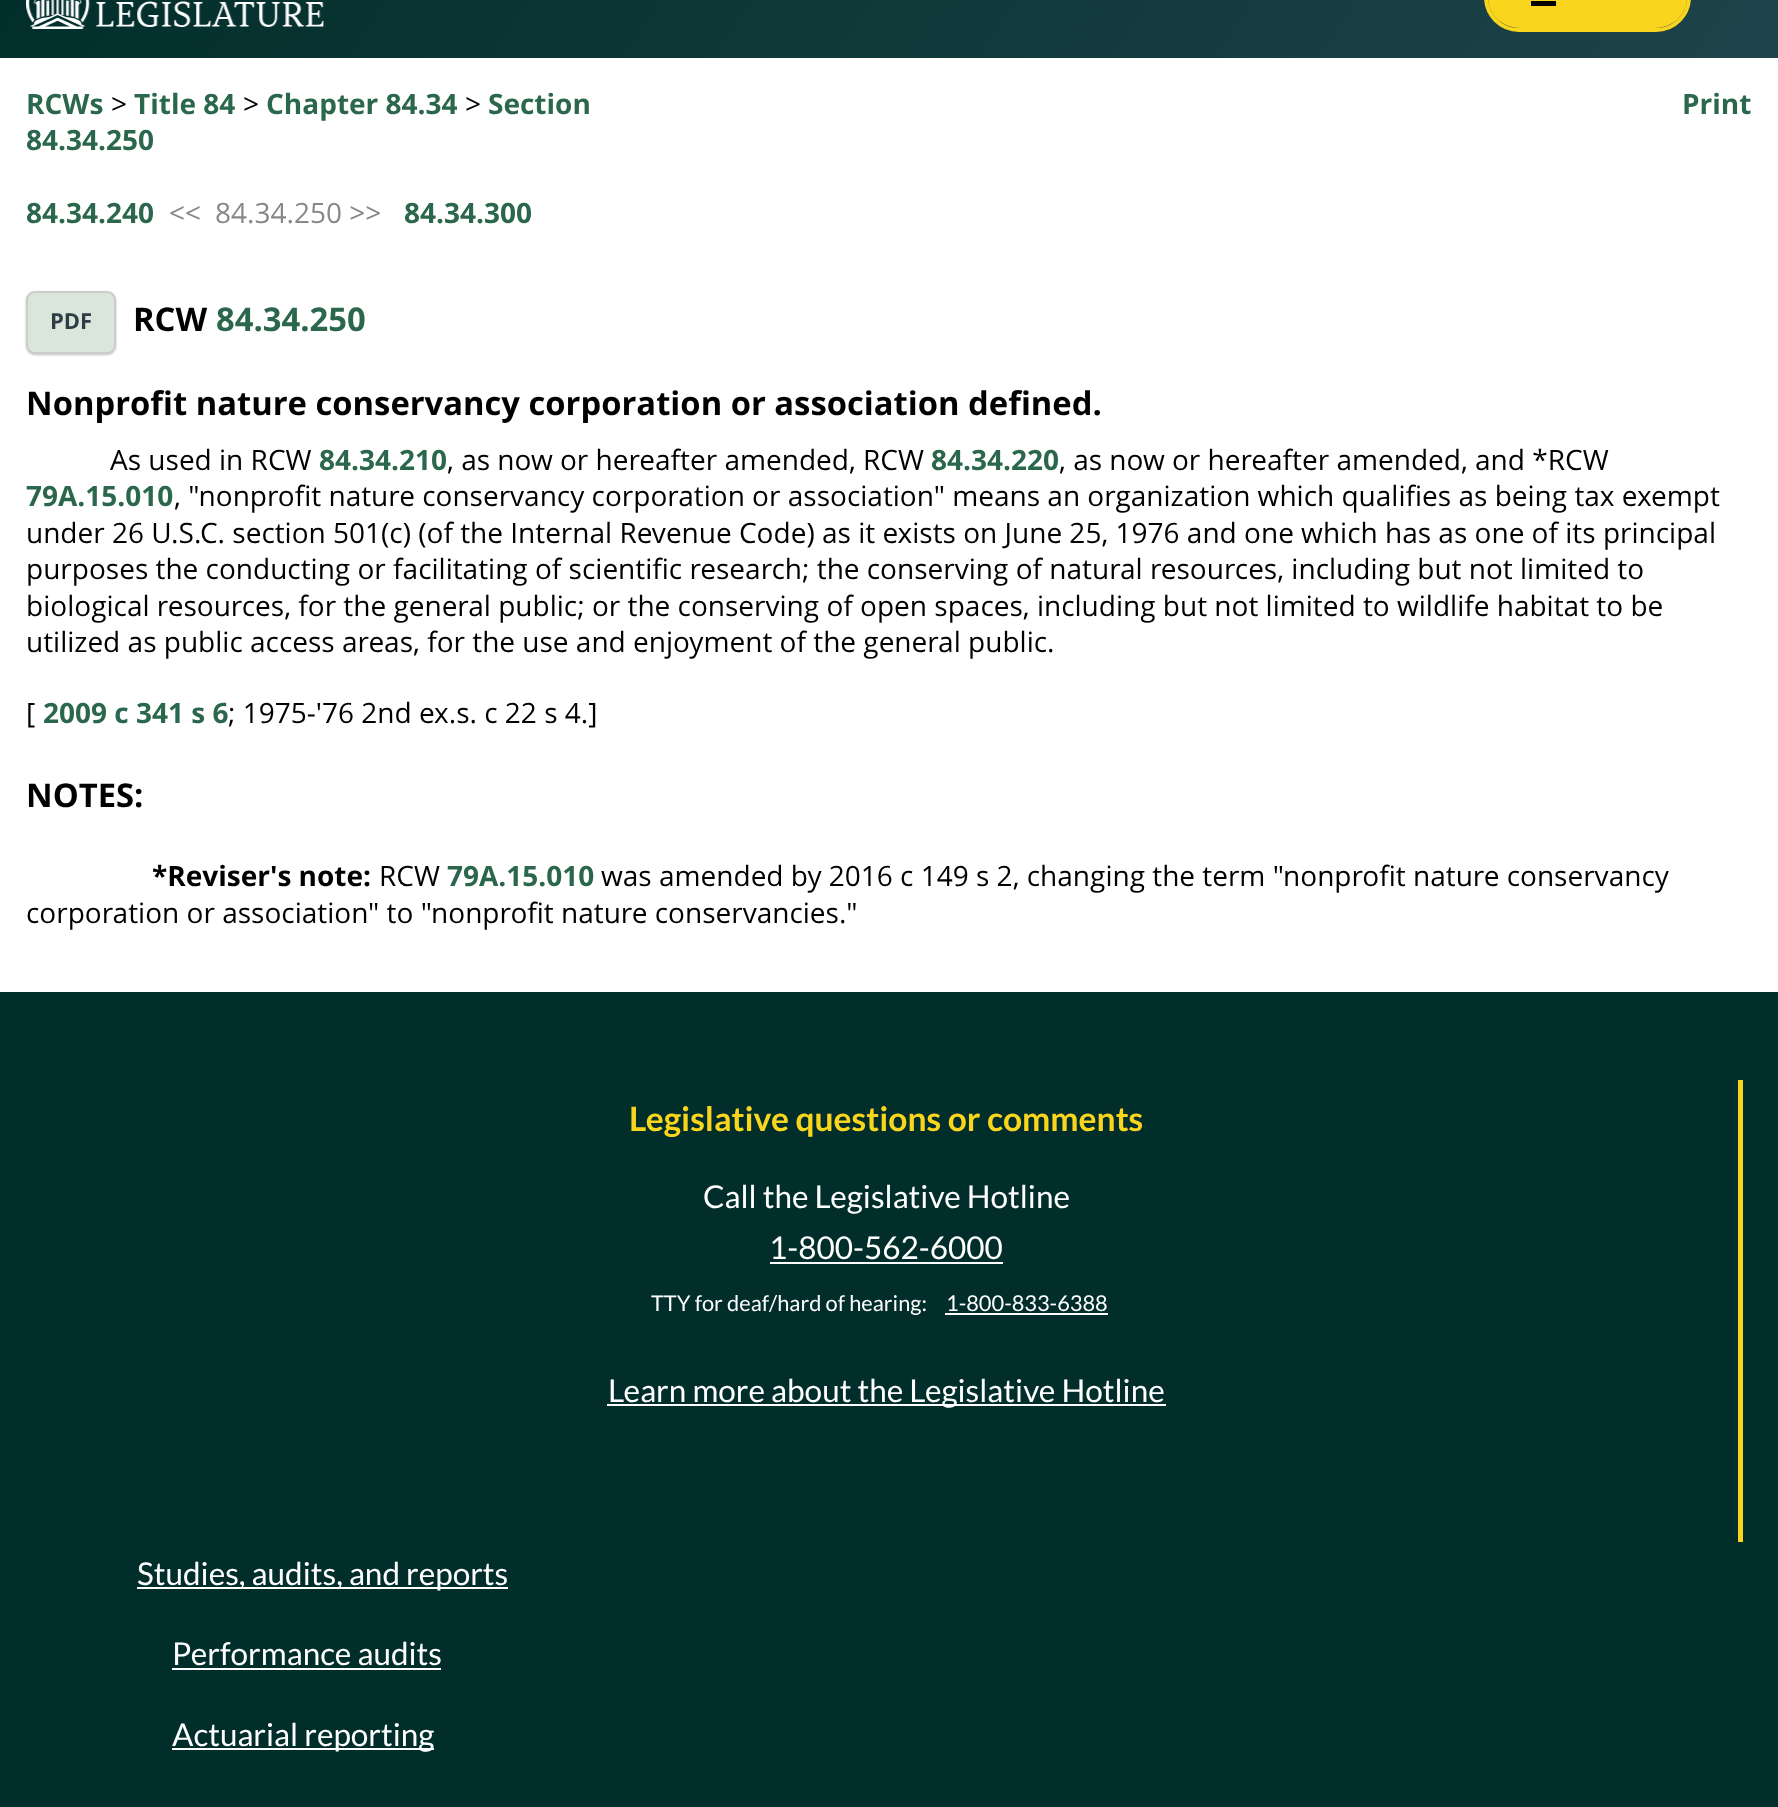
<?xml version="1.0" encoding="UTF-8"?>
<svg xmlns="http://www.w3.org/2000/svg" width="1778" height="1807">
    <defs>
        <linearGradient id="g1" gradientUnits="userSpaceOnUse" x1="1526" y1="431" x2="252" y2="-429"><stop offset="0" stop-color="#1E434A"/><stop offset="1" stop-color="#012E2A"/></linearGradient>
        <filter id="blur1" x="-50%" y="-200%" width="200%" height="500%"><feGaussianBlur stdDeviation="1"/></filter>
    </defs>
    <rect width="100%" height="100%" fill="#FFFFFF"/>
    <rect x="0" y="0" width="1778" height="58" fill="url(#g1)"/>
    <image x="26" y="0" width="298" height="29" href="img_01.png"/>
    <rect x="1488" y="-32" width="199" height="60" rx="32" fill="#FAD51D"/>
    <rect x="1486" y="-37" width="203" height="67" rx="33" fill="none" stroke="#FAD51D" stroke-width="4"/>
    <rect x="1531" y="1" width="25" height="5" fill="#000000"/>
    <text x="26" y="114" font-family="Open Sans" font-size="28" font-weight="700" fill="#2B674D">RCWs</text>
    <text x="111" y="114" font-family="Open Sans" font-size="28" fill="#000000">&gt;</text>
    <text x="134" y="114" font-family="Open Sans" font-size="28" font-weight="700" fill="#2B674D">Title 84</text>
    <text x="243" y="114" font-family="Open Sans" font-size="28" fill="#000000">&gt;</text>
    <text x="266" y="114" font-family="Open Sans" font-size="28" font-weight="700" fill="#2B674D">Chapter 84.34</text>
    <text x="465" y="114" font-family="Open Sans" font-size="28" fill="#000000">&gt;</text>
    <text x="488" y="114" font-family="Open Sans" font-size="28" font-weight="700" fill="#2B674D">Section</text>
    <text x="26" y="150" font-family="Open Sans" font-size="28" font-weight="700" fill="#2B674D">84.34.250</text>
    <text x="1682" y="114" font-family="Open Sans" font-size="28" font-weight="700" fill="#2B674D">Print</text>
    <text x="26" y="223" font-family="Open Sans" font-size="28" font-weight="700" fill="#2B674D">84.34.240</text>
    <text x="169" y="223" font-family="Open Sans" font-size="28" fill="#888888">&lt;&lt;</text>
    <text x="215" y="223" font-family="Open Sans" font-size="28" fill="#888888">84.34.250 &gt;&gt;</text>
    <text x="404" y="223" font-family="Open Sans" font-size="28" font-weight="700" fill="#2B674D">84.34.300</text>
    <rect x="26" y="292" width="90" height="63" rx="9" fill="#333333" fill-opacity="0.3" filter="url(#blur1)"/>
    <rect x="27" y="292" width="88" height="61" rx="8" fill="#DBE6DB" stroke="#CCCCCC" stroke-width="2"/>
    <text x="50" y="329" font-family="Open Sans" font-size="22" font-weight="700" fill="#2F3E46">PDF</text>
    <text x="133" y="331" font-family="Open Sans" font-size="32.75" font-weight="700" fill="#000000">RCW</text>
    <text x="216" y="331" font-family="Open Sans" font-size="32.75" font-weight="700" fill="#2B674D">84.34.250</text>
    <text x="26" y="415" font-family="Open Sans" font-size="32.75" font-weight="700" fill="#000000">Nonprofit nature conservancy corporation or association defined.</text>
    <text x="110" y="470" font-family="Open Sans" font-size="28" fill="#000000">As used in RCW</text>
    <text x="319" y="470" font-family="Open Sans" font-size="28" font-weight="700" fill="#2B674D">84.34.210</text>
    <text x="447" y="470" font-family="Open Sans" font-size="28" fill="#000000">, as now or hereafter amended, RCW</text>
    <text x="931" y="470" font-family="Open Sans" font-size="28" font-weight="700" fill="#2B674D">84.34.220</text>
    <text x="1059" y="470" font-family="Open Sans" font-size="28" fill="#000000">, as now or hereafter amended, and *RCW</text>
    <text x="26" y="506" font-family="Open Sans" font-size="28" font-weight="700" fill="#2B674D">79A.15.010</text>
    <text x="174" y="506" font-family="Open Sans" font-size="28" fill="#000000">, "nonprofit nature conservancy corporation or association" means an organization which qualifies as being tax exempt</text>
    <text font-family="Open Sans" font-size="28" fill="#000000">
        <tspan x="26" y="543">under 26 U.S.C. section 501(c) (of the Internal Revenue Code) as it exists on June 25, 1976 and one which has as one of its principal</tspan>
        <tspan x="26" y="579">purposes the conducting or facilitating of scientific research; the conserving of natural resources, including but not limited to</tspan>
        <tspan x="26" y="616">biological resources, for the general public; or the conserving of open spaces, including but not limited to wildlife habitat to be</tspan>
        <tspan x="26" y="652">utilized as public access areas, for the use and enjoyment of the general public.</tspan>
    </text>
    <text x="26" y="723" font-family="Open Sans" font-size="28" fill="#000000">[</text>
    <text x="43" y="723" font-family="Open Sans" font-size="28" font-weight="700" fill="#2B674D">2009 c 341 s 6</text>
    <text x="228" y="723" font-family="Open Sans" font-size="28" fill="#000000">; 1975-'76 2nd ex.s. c 22 s 4.]</text>
    <text x="26" y="807" font-family="Open Sans" font-size="32.75" font-weight="700" fill="#000000">NOTES:</text>
    <text x="152" y="886" font-family="Open Sans" font-size="28" font-weight="700" fill="#000000">*Reviser's note:</text>
    <text x="379" y="886" font-family="Open Sans" font-size="28" fill="#000000">RCW</text>
    <text x="447" y="886" font-family="Open Sans" font-size="28" font-weight="700" fill="#2B674D">79A.15.010</text>
    <text x="601" y="886" font-family="Open Sans" font-size="28" fill="#000000">was amended by 2016 c 149 s 2, changing the term "nonprofit nature conservancy</text>
    <text x="26" y="923" font-family="Open Sans" font-size="28" fill="#000000">corporation or association" to "nonprofit nature conservancies."</text>
    <rect x="0" y="992" width="1778" height="815" fill="#012E2A"/>
    <rect x="1738" y="1080" width="5" height="462" fill="#FAD51D"/>
    <text x="629" y="1131" font-family="Lato" font-size="33.6" font-weight="700" fill="#FAD51D">Legislative questions or comments</text>
    <text x="703" y="1208" font-family="Lato" font-size="31.5" fill="#FFFFFF">Call the Legislative Hotline</text>
    <text x="769" y="1259" font-family="Lato" font-size="31.5" fill="#FFFFFF">1-800-562-6000</text>
    <rect x="770" y="1262" width="233" height="2" fill="#FFFFFF"/>
    <text x="651" y="1311" font-family="Lato" font-size="21.8" fill="#FFFFFF">TTY for deaf/hard of hearing:</text>
    <text x="946" y="1311" font-family="Lato" font-size="21.8" fill="#FFFFFF">1-800-833-6388</text>
    <rect x="945" y="1313" width="163" height="2" fill="#FFFFFF"/>
    <rect x="607" y="1404" width="559" height="2" fill="#FFFFFF"/>
    <text x="608" y="1402" font-family="Lato" font-size="31.5" fill="#FFFFFF">Learn more about the Legislative Hotline</text>
    <rect x="137" y="1587" width="371" height="2" fill="#FFFFFF"/>
    <text x="137" y="1585" font-family="Lato" font-size="31.5" fill="#FFFFFF">Studies, audits, and reports</text>
    <text x="172" y="1665" font-family="Lato" font-size="31.5" fill="#FFFFFF">Performance audits</text>
    <rect x="172" y="1668" width="269" height="2" fill="#FFFFFF"/>
    <rect x="172" y="1748" width="262" height="2" fill="#FFFFFF"/>
    <text x="172" y="1746" font-family="Lato" font-size="31.5" fill="#FFFFFF">Actuarial reporting</text>
</svg>
